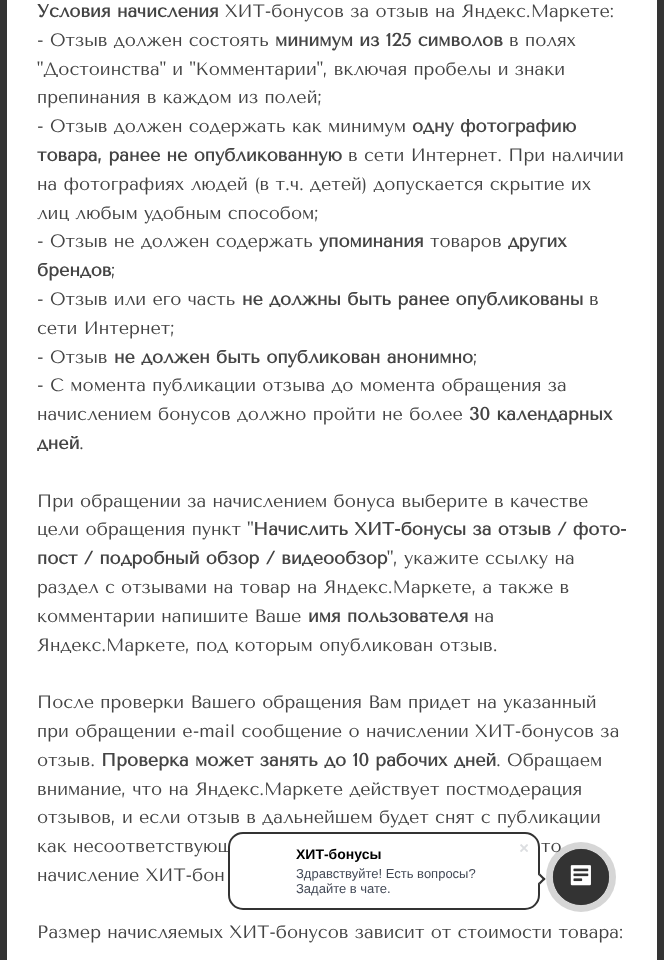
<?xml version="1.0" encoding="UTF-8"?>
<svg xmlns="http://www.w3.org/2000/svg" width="664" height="960">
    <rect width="100%" height="100%" fill="#FFFFFF"/>
    <rect x="3.5" y="-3.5" width="657" height="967" fill="none" stroke="#333333" stroke-width="7"/>
    <text x="37" y="17" font-family="Tenor Sans" font-size="18" font-weight="700" fill="#444444">Условия начисления</text>
    <text x="225" y="17" font-family="Tenor Sans" font-size="18" fill="#444444">ХИТ-бонусов за отзыв на Яндекс.Маркете:</text>
    <text x="37" y="46" font-family="Tenor Sans" font-size="18" fill="#444444">- Отзыв должен состоять</text>
    <text x="275" y="46" font-family="Tenor Sans" font-size="18" font-weight="700" fill="#444444">минимум из 125 символов</text>
    <text x="509" y="46" font-family="Tenor Sans" font-size="18" fill="#444444">в полях</text>
    <text font-family="Tenor Sans" font-size="18" fill="#444444">
        <tspan x="37" y="75">"Достоинства" и "Комментарии", включая пробелы и знаки</tspan>
        <tspan x="37" y="103">препинания в каждом из полей;</tspan>
        <tspan x="37" y="132">- Отзыв должен содержать как минимум</tspan>
    </text>
    <text x="412" y="132" font-family="Tenor Sans" font-size="18" font-weight="700" fill="#444444">одну фотографию</text>
    <text x="37" y="161" font-family="Tenor Sans" font-size="18" font-weight="700" fill="#444444">товара, ранее не опубликованную</text>
    <text x="348" y="161" font-family="Tenor Sans" font-size="18" fill="#444444">в сети Интернет. При наличии</text>
    <text font-family="Tenor Sans" font-size="18" fill="#444444">
        <tspan x="37" y="190">на фотографиях людей (в т.ч. детей) допускается скрытие их</tspan>
        <tspan x="37" y="219">лиц любым удобным способом;</tspan>
        <tspan x="37" y="247">- Отзыв не должен содержать</tspan>
    </text>
    <text x="319" y="247" font-family="Tenor Sans" font-size="18" font-weight="700" fill="#444444">упоминания</text>
    <text x="430" y="247" font-family="Tenor Sans" font-size="18" fill="#444444">товаров</text>
    <text x="508" y="247" font-family="Tenor Sans" font-size="18" font-weight="700" fill="#444444">других</text>
    <text x="37" y="276" font-family="Tenor Sans" font-size="18" font-weight="700" fill="#444444">брендов</text>
    <text x="111" y="276" font-family="Tenor Sans" font-size="18" fill="#444444">;</text>
    <text x="37" y="305" font-family="Tenor Sans" font-size="18" fill="#444444">- Отзыв или его часть</text>
    <text x="242" y="305" font-family="Tenor Sans" font-size="18" font-weight="700" fill="#444444">не должны быть ранее опубликованы</text>
    <text x="589" y="305" font-family="Tenor Sans" font-size="18" fill="#444444">в</text>
    <text font-family="Tenor Sans" font-size="18" fill="#444444">
        <tspan x="37" y="334">сети Интернет;</tspan>
        <tspan x="37" y="363">- Отзыв</tspan>
    </text>
    <text x="114" y="363" font-family="Tenor Sans" font-size="18" font-weight="700" fill="#444444">не должен быть опубликован анонимно</text>
    <text x="473" y="363" font-family="Tenor Sans" font-size="18" fill="#444444">;</text>
    <text font-family="Tenor Sans" font-size="18" fill="#444444">
        <tspan x="37" y="391">- С момента публикации отзыва до момента обращения за</tspan>
        <tspan x="37" y="420">начислением бонусов должно пройти не более</tspan>
    </text>
    <text x="469" y="420" font-family="Tenor Sans" font-size="18" font-weight="700" fill="#444444">30 календарных</text>
    <text x="37" y="449" font-family="Tenor Sans" font-size="18" font-weight="700" fill="#444444">дней</text>
    <text x="79" y="449" font-family="Tenor Sans" font-size="18" fill="#444444">.</text>
    <text font-family="Tenor Sans" font-size="18" fill="#444444">
        <tspan x="37" y="507">При обращении за начислением бонуса выберите в качестве</tspan>
        <tspan x="37" y="535">цели обращения пункт "</tspan>
    </text>
    <text x="253" y="535" font-family="Tenor Sans" font-size="18" font-weight="700" fill="#444444">Начислить ХИТ-бонусы за отзыв / фото-</text>
    <text x="37" y="564" font-family="Tenor Sans" font-size="18" font-weight="700" fill="#444444">пост / подробный обзор / видеообзор</text>
    <text x="387" y="564" font-family="Tenor Sans" font-size="18" fill="#444444">", укажите ссылку на</text>
    <text font-family="Tenor Sans" font-size="18" fill="#444444">
        <tspan x="37" y="593">раздел с отзывами на товар на Яндекс.Маркете, а также в</tspan>
        <tspan x="37" y="622">комментарии напишите Ваше</tspan>
    </text>
    <text x="308" y="622" font-family="Tenor Sans" font-size="18" font-weight="700" fill="#444444">имя пользователя</text>
    <text x="474" y="622" font-family="Tenor Sans" font-size="18" fill="#444444">на</text>
    <text x="37" y="651" font-family="Tenor Sans" font-size="18" fill="#444444">Яндекс.Маркете, под которым опубликован отзыв.</text>
    <text font-family="Tenor Sans" font-size="18" fill="#444444">
        <tspan x="37" y="708">После проверки Вашего обращения Вам придет на указанный</tspan>
        <tspan x="37" y="737">при обращении e-mail сообщение о начислении ХИТ-бонусов за</tspan>
        <tspan x="37" y="766">отзыв.</tspan>
    </text>
    <text x="101" y="766" font-family="Tenor Sans" font-size="18" font-weight="700" fill="#444444">Проверка может занять до 10 рабочих дней</text>
    <text x="496" y="766" font-family="Tenor Sans" font-size="18" fill="#444444">. Обращаем</text>
    <text font-family="Tenor Sans" font-size="18" fill="#444444">
        <tspan x="37" y="795">внимание, что на Яндекс.Маркете действует постмодерация</tspan>
        <tspan x="37" y="823">отзывов, и если отзыв в дальнейшем будет снят с публикации</tspan>
        <tspan x="37" y="852">как несоответствующ</tspan>
    </text>
    <text x="541" y="852" font-family="Tenor Sans" font-size="18" fill="#444444">то</text>
    <text x="37" y="881" font-family="Tenor Sans" font-size="18" fill="#444444">начисление ХИТ-бон</text>
    <text x="37" y="938" font-family="Tenor Sans" font-size="18" fill="#444444">Размер начисляемых ХИТ-бонусов зависит от стоимости товара:</text>
    <path d="M 56 862.5 L 64.5 871 L 63 872.5 L 54.5 864 Z" fill="#FFFFFF"/>
    <path d="M 56 862.5 L 57.5 864 L 49 872.5 L 47.5 871 Z" fill="#FFFFFF"/>
    <rect x="229" y="833" width="310" height="76" rx="14" fill="#FFFFFF" stroke="#333333" stroke-width="2"/>
    <text x="296" y="859" font-family="Liberation Sans" font-size="14" font-weight="700" fill="#000000">ХИТ-бонусы</text>
    <text font-family="Liberation Sans" font-size="13" fill="#424956">
        <tspan x="296" y="878">Здравствуйте! Есть вопросы?</tspan>
        <tspan x="296" y="893">Задайте в чате.</tspan>
    </text>
    <image x="520" y="844" width="8" height="8" href="img_01.png"/>
    <path d="M 534.5 879 L 540 873.5 L 545.5 879 L 540 884.5 Z" fill="#FFFFFF"/>
    <path d="M 538.5 875 L 540 873.5 L 545.5 879 L 544 880.5 Z" fill="#333333"/>
    <path d="M 538.5 883 L 544 877.5 L 545.5 879 L 540 884.5 Z" fill="#333333"/>
    <circle cx="581" cy="877" r="35" fill="#333333" fill-opacity="0.2"/>
    <circle cx="581" cy="877" r="27.6" fill="none" stroke="#333333" stroke-width="0.8"/>
    <circle cx="581" cy="877" r="28" fill="#333333"/>
    <image x="570" y="865" width="21" height="21" href="img_02.png"/>
</svg>
